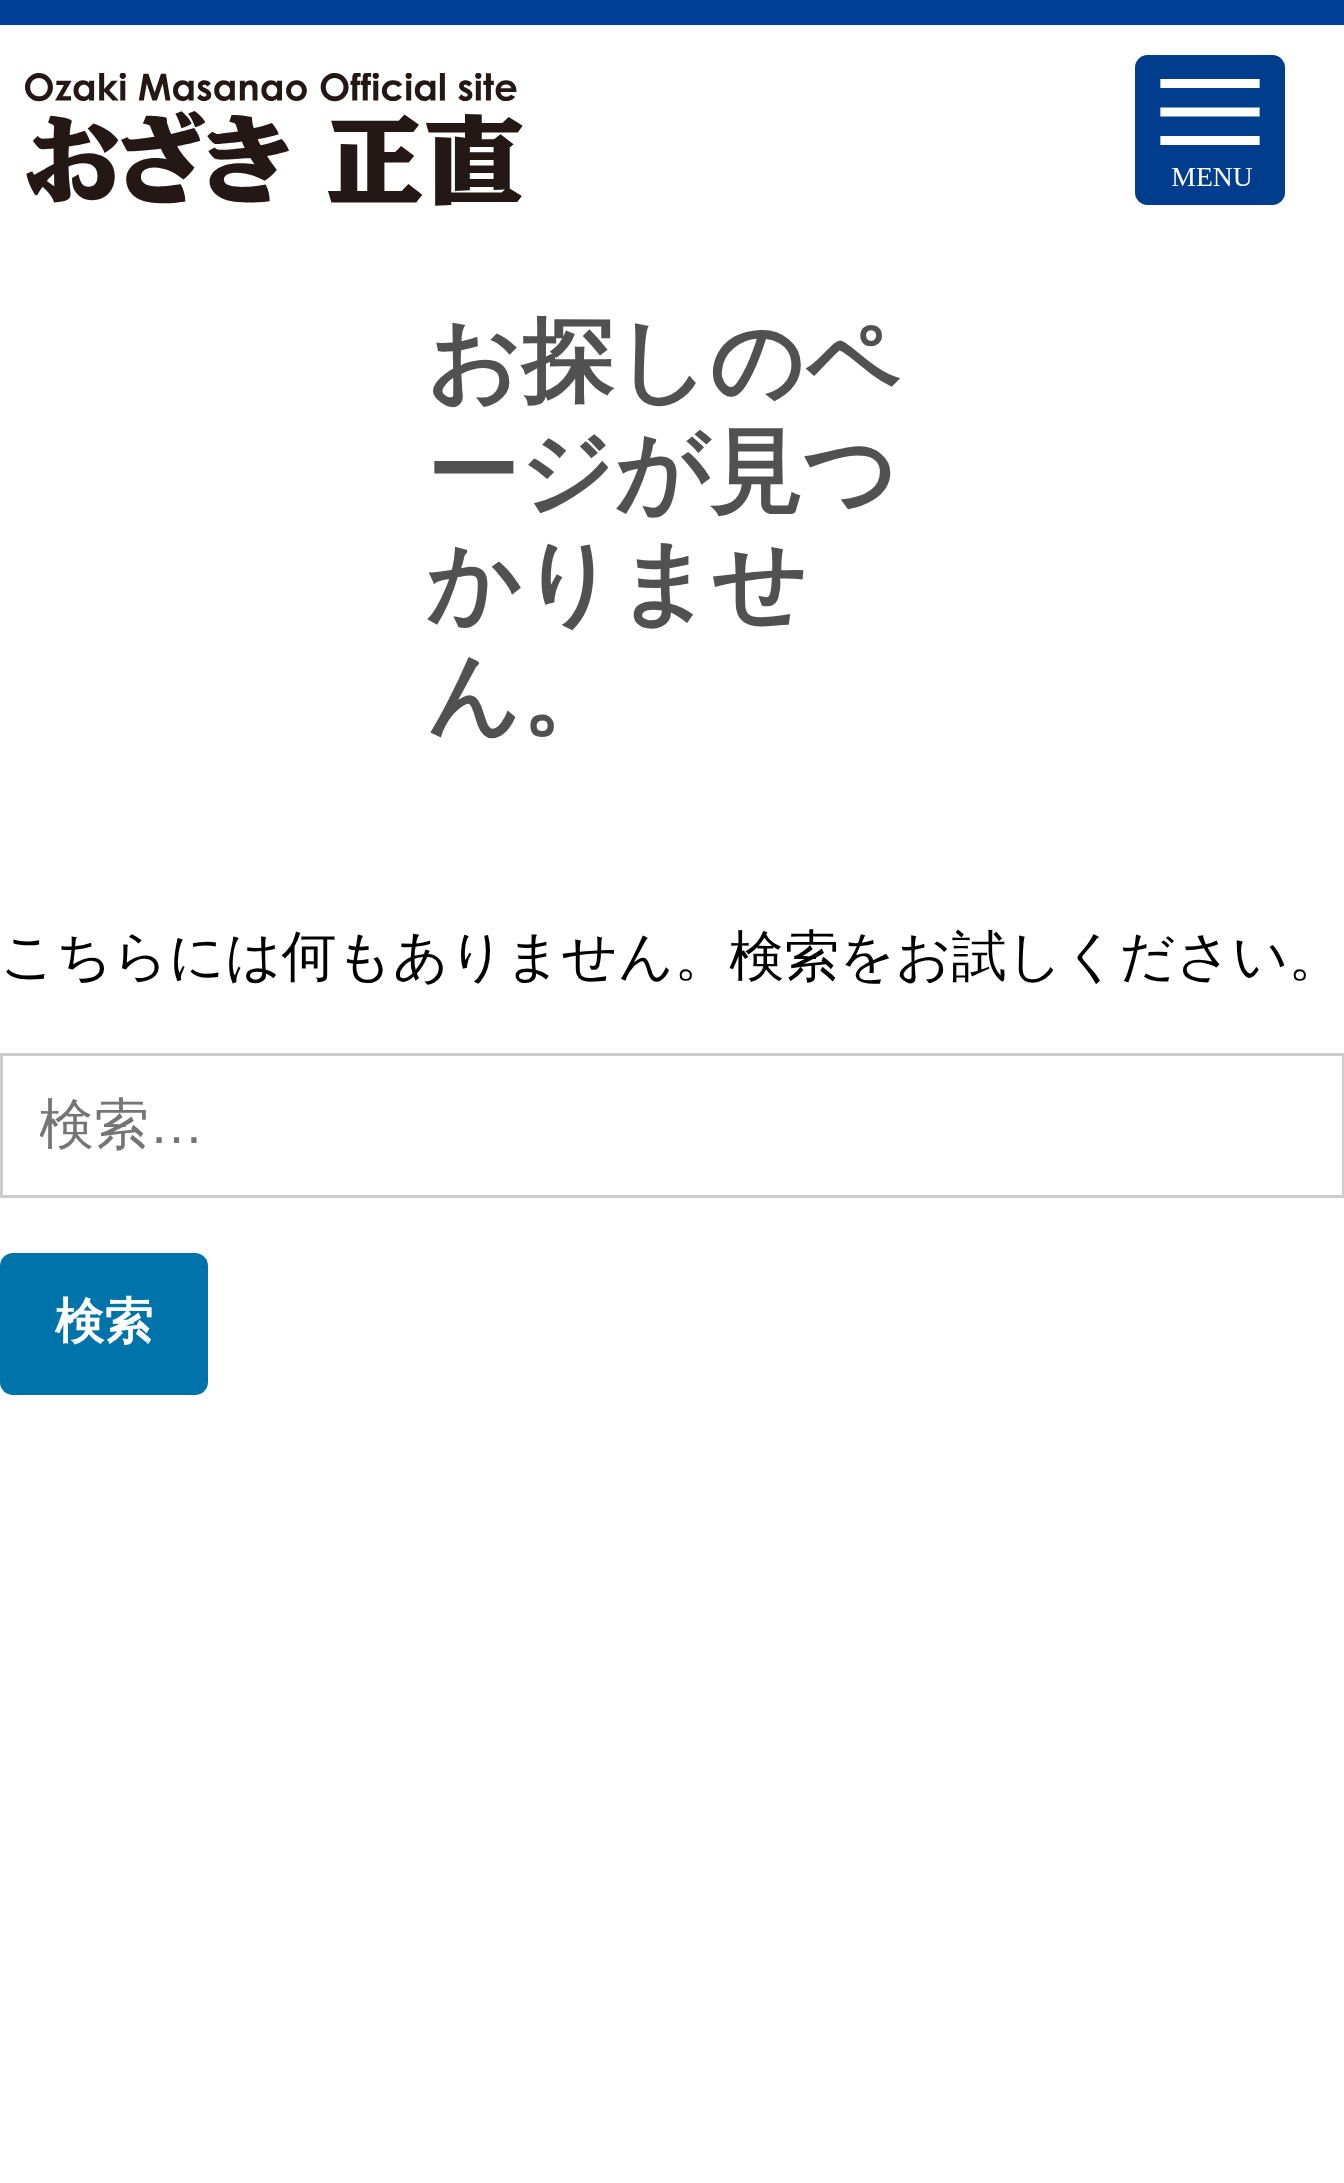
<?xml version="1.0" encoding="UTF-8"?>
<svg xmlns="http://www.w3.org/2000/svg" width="1344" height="2183">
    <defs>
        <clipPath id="clip1"><rect x="40" y="1088" width="1218" height="75"/></clipPath>
    </defs>
    <rect width="100%" height="100%" fill="#FFFFFF"/>
    <image x="1135" y="55" width="150" height="150" href="img_01.png"/>
    <rect x="0" y="0" width="1344" height="25" fill="#004098"/>
    <image x="25" y="73" width="498" height="133" href="img_02.png"/>
    <text font-family="WenQuanYi Zen Hei" font-size="93" font-weight="700" fill="#515151">
        <tspan x="426" y="393">お探しのペ</tspan>
        <tspan x="426" y="504">ージが見つ</tspan>
        <tspan x="426" y="615">かりませ</tspan>
        <tspan x="426" y="727">ん。</tspan>
    </text>
    <text x="0" y="975" font-family="WenQuanYi Zen Hei" font-size="55" font-weight="500" fill="#000000">こちらには何もありません。検索をお試しください。</text>
    <rect x="1.5" y="1054.5" width="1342" height="142" fill="none" stroke="#CCCCCC" stroke-width="3"/>
    <g clip-path="url(#clip1)">
        <text x="39" y="1143" font-family="WenQuanYi Zen Hei" font-size="55" font-weight="500" fill="#757575">検索</text>
    </g>
    <text x="149" y="1143" font-family="Liberation Sans" font-size="55" fill="#757575">…</text>
    <rect x="0" y="1253" width="208" height="142" rx="13" fill="#0073AA"/>
    <text x="55" y="1338" font-family="WenQuanYi Zen Hei" font-size="49" font-weight="700" fill="#FFFFFF">検索</text>
</svg>
